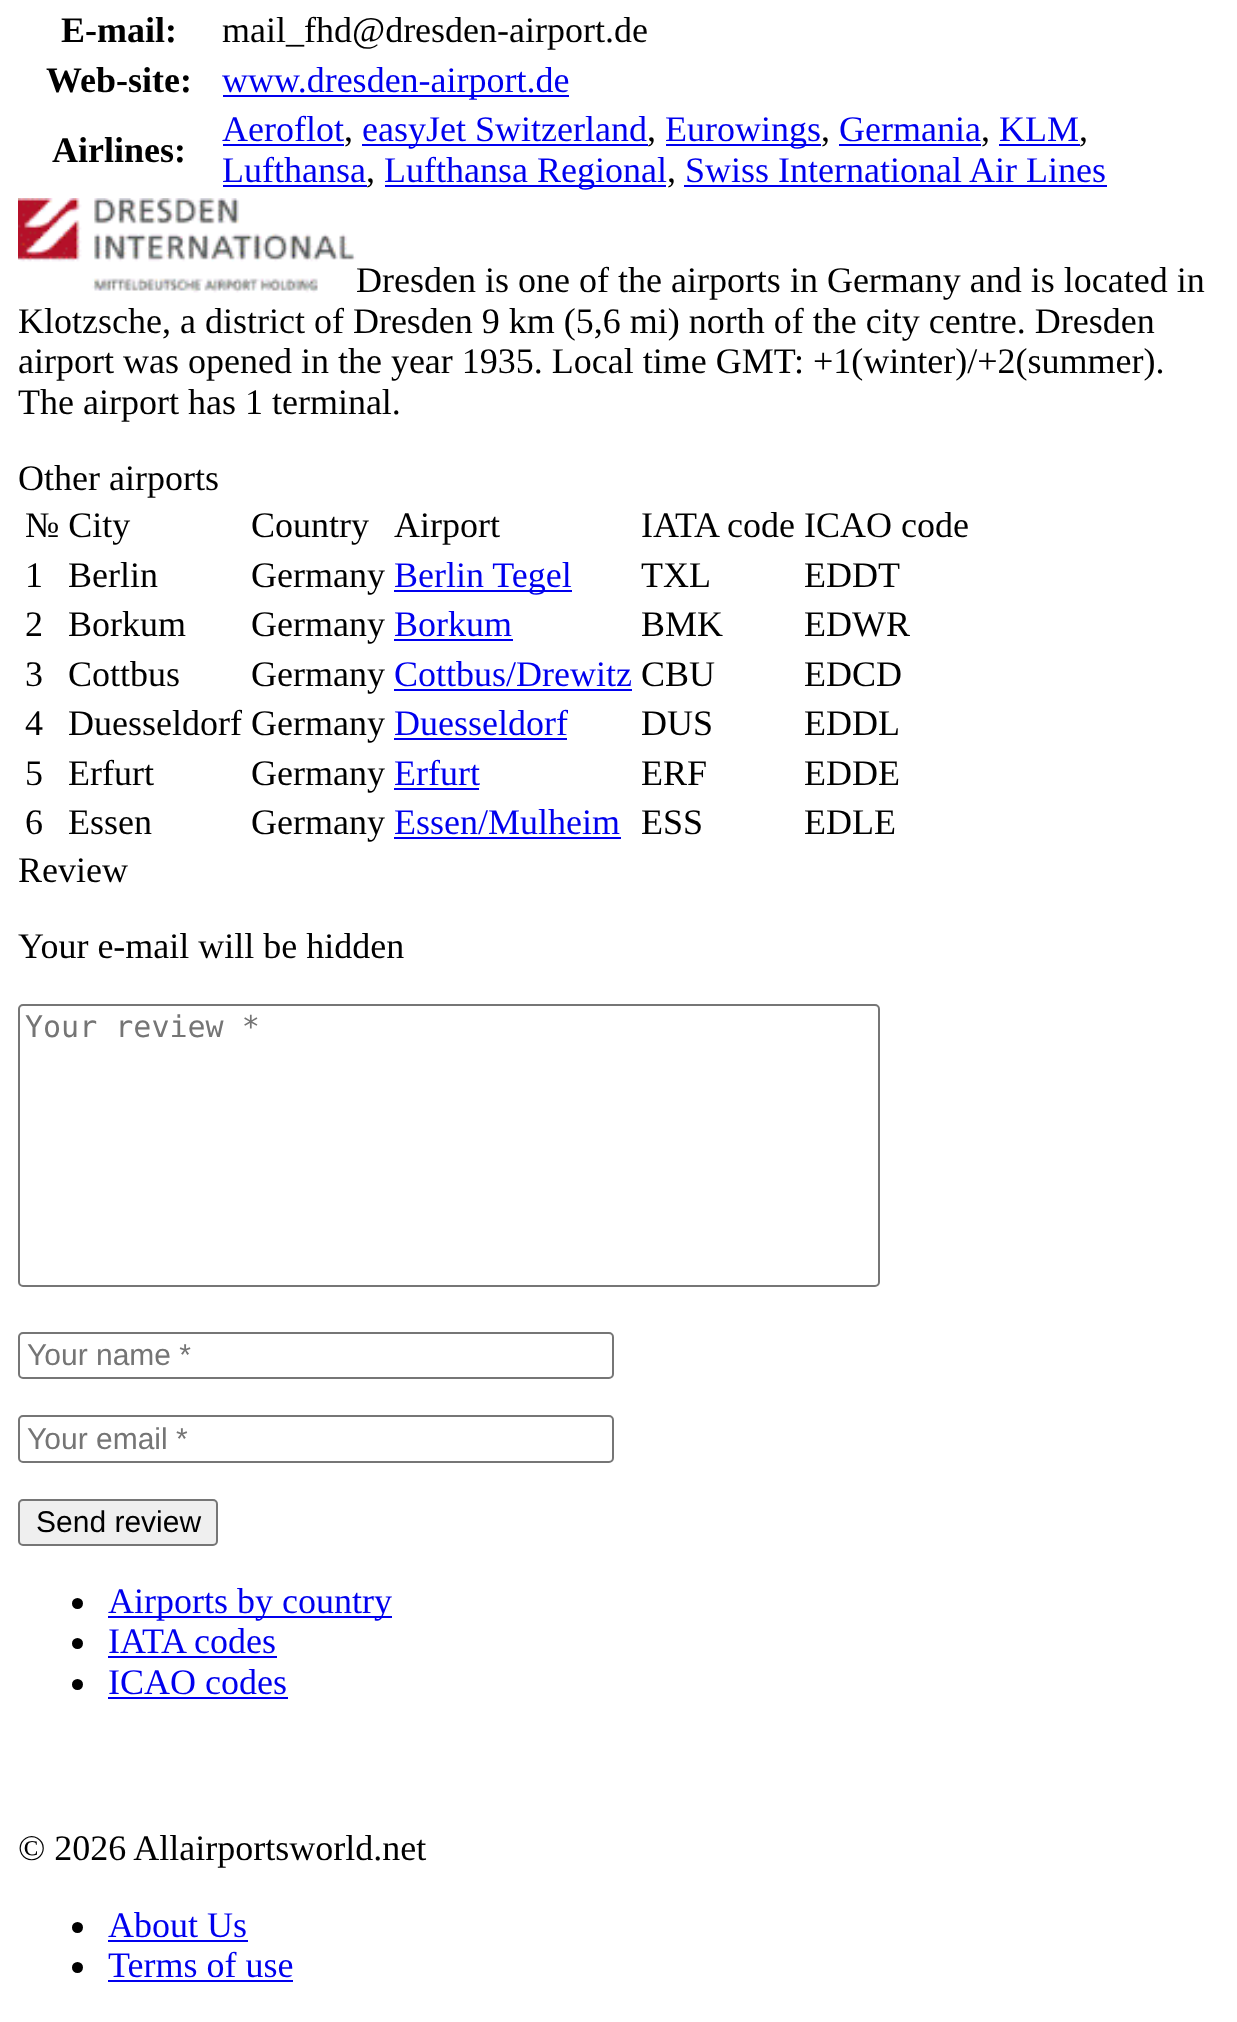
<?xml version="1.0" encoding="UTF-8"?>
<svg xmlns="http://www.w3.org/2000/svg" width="1237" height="2022">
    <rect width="100%" height="100%" fill="#FFFFFF"/>
    <text x="61" y="42" font-family="Liberation Serif" font-size="36" font-weight="700" fill="#000000">E-mail:</text>
    <text x="222" y="42" font-family="Liberation Serif" font-size="36" fill="#000000">mail_fhd@dresden-airport.de</text>
    <text x="46" y="92" font-family="Liberation Serif" font-size="36" font-weight="700" fill="#000000">Web-site:</text>
    <rect x="223" y="95" width="346" height="2" fill="#0000EE"/>
    <text x="222" y="92" font-family="Liberation Serif" font-size="36" fill="#0000EE">www.dresden-airport.de</text>
    <text x="52" y="162" font-family="Liberation Serif" font-size="36" font-weight="700" fill="#000000">Airlines:</text>
    <text x="222" y="141" font-family="Liberation Serif" font-size="36" fill="#0000EE">Aeroflot</text>
    <rect x="223" y="144" width="121" height="2" fill="#0000EE"/>
    <rect x="362" y="144" width="286" height="2" fill="#0000EE"/>
    <text x="362" y="141" font-family="Liberation Serif" font-size="36" fill="#0000EE">easyJet Switzerland</text>
    <rect x="666" y="144" width="155" height="2" fill="#0000EE"/>
    <text x="665" y="141" font-family="Liberation Serif" font-size="36" fill="#0000EE">Eurowings</text>
    <text x="839" y="141" font-family="Liberation Serif" font-size="36" fill="#0000EE">Germania</text>
    <rect x="839" y="144" width="142" height="2" fill="#0000EE"/>
    <text x="999" y="141" font-family="Liberation Serif" font-size="36" fill="#0000EE">KLM</text>
    <rect x="999" y="144" width="81" height="2" fill="#0000EE"/>
    <text x="344" y="141" font-family="Liberation Serif" font-size="36" fill="#000000">,</text>
    <text x="647" y="141" font-family="Liberation Serif" font-size="36" fill="#000000">,</text>
    <text x="821" y="141" font-family="Liberation Serif" font-size="36" fill="#000000">,</text>
    <text x="981" y="141" font-family="Liberation Serif" font-size="36" fill="#000000">,</text>
    <text x="1079" y="141" font-family="Liberation Serif" font-size="36" fill="#000000">,</text>
    <text x="222" y="182" font-family="Liberation Serif" font-size="36" fill="#0000EE">Lufthansa</text>
    <rect x="223" y="185" width="144" height="2" fill="#0000EE"/>
    <text x="366" y="182" font-family="Liberation Serif" font-size="36" fill="#000000">,</text>
    <rect x="385" y="185" width="281" height="2" fill="#0000EE"/>
    <text x="384" y="182" font-family="Liberation Serif" font-size="36" fill="#0000EE">Lufthansa Regional</text>
    <text x="667" y="182" font-family="Liberation Serif" font-size="36" fill="#000000">,</text>
    <text x="685" y="182" font-family="Liberation Serif" font-size="36" fill="#0000EE">Swiss International Air Lines</text>
    <rect x="684" y="185" width="423" height="2" fill="#0000EE"/>
    <image x="18" y="198" width="338" height="95" href="img_01.png"/>
    <text x="356" y="292" font-family="Liberation Serif" font-size="36" fill="#000000">Dresden is one of the airports in Germany and is located in</text>
    <text font-family="Liberation Serif" font-size="36" fill="#000000">
        <tspan x="18" y="333">Klotzsche, a district of Dresden 9 km (5,6 mi) north of the city centre. Dresden</tspan>
        <tspan x="18" y="373">airport was opened in the year 1935. Local time GMT: +1(winter)/+2(summer).</tspan>
        <tspan x="18" y="414">The airport has 1 terminal.</tspan>
    </text>
    <text x="18" y="490" font-family="Liberation Serif" font-size="36" fill="#000000">Other airports</text>
    <text x="25" y="537" font-family="Liberation Serif" font-size="36" fill="#000000">№ City</text>
    <text x="251" y="537" font-family="Liberation Serif" font-size="36" fill="#000000">Country</text>
    <text x="394" y="537" font-family="Liberation Serif" font-size="36" fill="#000000">Airport</text>
    <text x="641" y="537" font-family="Liberation Serif" font-size="36" fill="#000000">IATA code ICAO code</text>
    <text x="25" y="587" font-family="Liberation Serif" font-size="36" fill="#000000">1</text>
    <text x="68" y="587" font-family="Liberation Serif" font-size="36" fill="#000000">Berlin</text>
    <text x="251" y="587" font-family="Liberation Serif" font-size="36" fill="#000000">Germany</text>
    <rect x="394" y="590" width="178" height="2" fill="#0000EE"/>
    <text x="394" y="587" font-family="Liberation Serif" font-size="36" fill="#0000EE">Berlin Tegel</text>
    <text x="641" y="587" font-family="Liberation Serif" font-size="36" fill="#000000">TXL</text>
    <text x="804" y="587" font-family="Liberation Serif" font-size="36" fill="#000000">EDDT</text>
    <text x="25" y="636" font-family="Liberation Serif" font-size="36" fill="#000000">2</text>
    <text x="68" y="636" font-family="Liberation Serif" font-size="36" fill="#000000">Borkum</text>
    <text x="251" y="636" font-family="Liberation Serif" font-size="36" fill="#000000">Germany</text>
    <text x="394" y="636" font-family="Liberation Serif" font-size="36" fill="#0000EE">Borkum</text>
    <rect x="394" y="639" width="119" height="2" fill="#0000EE"/>
    <text x="641" y="636" font-family="Liberation Serif" font-size="36" fill="#000000">BMK</text>
    <text x="804" y="636" font-family="Liberation Serif" font-size="36" fill="#000000">EDWR</text>
    <text x="25" y="686" font-family="Liberation Serif" font-size="36" fill="#000000">3</text>
    <text x="68" y="686" font-family="Liberation Serif" font-size="36" fill="#000000">Cottbus</text>
    <text x="251" y="686" font-family="Liberation Serif" font-size="36" fill="#000000">Germany</text>
    <text x="394" y="686" font-family="Liberation Serif" font-size="36" fill="#0000EE">Cottbus/Drewitz</text>
    <rect x="394" y="689" width="238" height="2" fill="#0000EE"/>
    <text x="641" y="686" font-family="Liberation Serif" font-size="36" fill="#000000">CBU</text>
    <text x="804" y="686" font-family="Liberation Serif" font-size="36" fill="#000000">EDCD</text>
    <text x="25" y="735" font-family="Liberation Serif" font-size="36" fill="#000000">4</text>
    <text x="68" y="735" font-family="Liberation Serif" font-size="36" fill="#000000">Duesseldorf Germany</text>
    <text x="394" y="735" font-family="Liberation Serif" font-size="36" fill="#0000EE">Duesseldorf</text>
    <rect x="394" y="738" width="173" height="2" fill="#0000EE"/>
    <text x="641" y="735" font-family="Liberation Serif" font-size="36" fill="#000000">DUS</text>
    <text x="804" y="735" font-family="Liberation Serif" font-size="36" fill="#000000">EDDL</text>
    <text x="25" y="785" font-family="Liberation Serif" font-size="36" fill="#000000">5</text>
    <text x="68" y="785" font-family="Liberation Serif" font-size="36" fill="#000000">Erfurt</text>
    <text x="251" y="785" font-family="Liberation Serif" font-size="36" fill="#000000">Germany</text>
    <text x="394" y="785" font-family="Liberation Serif" font-size="36" fill="#0000EE">Erfurt</text>
    <rect x="394" y="788" width="85" height="2" fill="#0000EE"/>
    <text x="641" y="785" font-family="Liberation Serif" font-size="36" fill="#000000">ERF</text>
    <text x="804" y="785" font-family="Liberation Serif" font-size="36" fill="#000000">EDDE</text>
    <text x="25" y="834" font-family="Liberation Serif" font-size="36" fill="#000000">6</text>
    <text x="68" y="834" font-family="Liberation Serif" font-size="36" fill="#000000">Essen</text>
    <text x="251" y="834" font-family="Liberation Serif" font-size="36" fill="#000000">Germany</text>
    <text x="394" y="834" font-family="Liberation Serif" font-size="36" fill="#0000EE">Essen/Mulheim</text>
    <rect x="394" y="837" width="227" height="2" fill="#0000EE"/>
    <text x="641" y="834" font-family="Liberation Serif" font-size="36" fill="#000000">ESS</text>
    <text x="804" y="834" font-family="Liberation Serif" font-size="36" fill="#000000">EDLE</text>
    <text x="18" y="882" font-family="Liberation Serif" font-size="36" fill="#000000">Review</text>
    <text x="18" y="958" font-family="Liberation Serif" font-size="36" fill="#000000">Your e-mail will be hidden</text>
    <rect x="19" y="1005" width="860" height="281" rx="4" fill="none" stroke="#767676" stroke-width="2"/>
    <text x="25" y="1037" font-family="DejaVu Sans Mono" font-size="30" fill="#757575">Your review *</text>
    <rect x="19" y="1333" width="594" height="45" rx="4" fill="none" stroke="#767676" stroke-width="2"/>
    <text x="27" y="1365" font-family="Liberation Sans" font-size="30" fill="#757575">Your name *</text>
    <rect x="19" y="1416" width="594" height="46" rx="4" fill="none" stroke="#767676" stroke-width="2"/>
    <text x="27" y="1449" font-family="Liberation Sans" font-size="30" fill="#757575">Your email *</text>
    <rect x="19" y="1500" width="198" height="45" rx="4" fill="#EFEFEF" stroke="#767676" stroke-width="2"/>
    <text x="36" y="1532" font-family="Liberation Sans" font-size="30" fill="#000000">Send review</text>
    <circle cx="77.5" cy="1603.5" r="5.5" fill="#000000"/>
    <rect x="108" y="1616" width="284" height="2" fill="#0000EE"/>
    <text x="108" y="1613" font-family="Liberation Serif" font-size="36" fill="#0000EE">Airports by country</text>
    <circle cx="77.5" cy="1643.5" r="5.5" fill="#000000"/>
    <text x="108" y="1653" font-family="Liberation Serif" font-size="36" fill="#0000EE">IATA codes</text>
    <rect x="108" y="1656" width="169" height="2" fill="#0000EE"/>
    <circle cx="77.5" cy="1684.5" r="5.5" fill="#000000"/>
    <text x="108" y="1694" font-family="Liberation Serif" font-size="36" fill="#0000EE">ICAO codes</text>
    <rect x="108" y="1697" width="180" height="2" fill="#0000EE"/>
    <text x="18" y="1860" font-family="Liberation Serif" font-size="36" fill="#000000">© 2026 Allairportsworld.net</text>
    <circle cx="77.5" cy="1927.5" r="5.5" fill="#000000"/>
    <text x="108" y="1937" font-family="Liberation Serif" font-size="36" fill="#0000EE">About Us</text>
    <rect x="108" y="1940" width="140" height="2" fill="#0000EE"/>
    <circle cx="77.5" cy="1967.5" r="5.5" fill="#000000"/>
    <text x="108" y="1977" font-family="Liberation Serif" font-size="36" fill="#0000EE">Terms of use</text>
    <rect x="108" y="1980" width="185" height="2" fill="#0000EE"/>
</svg>
